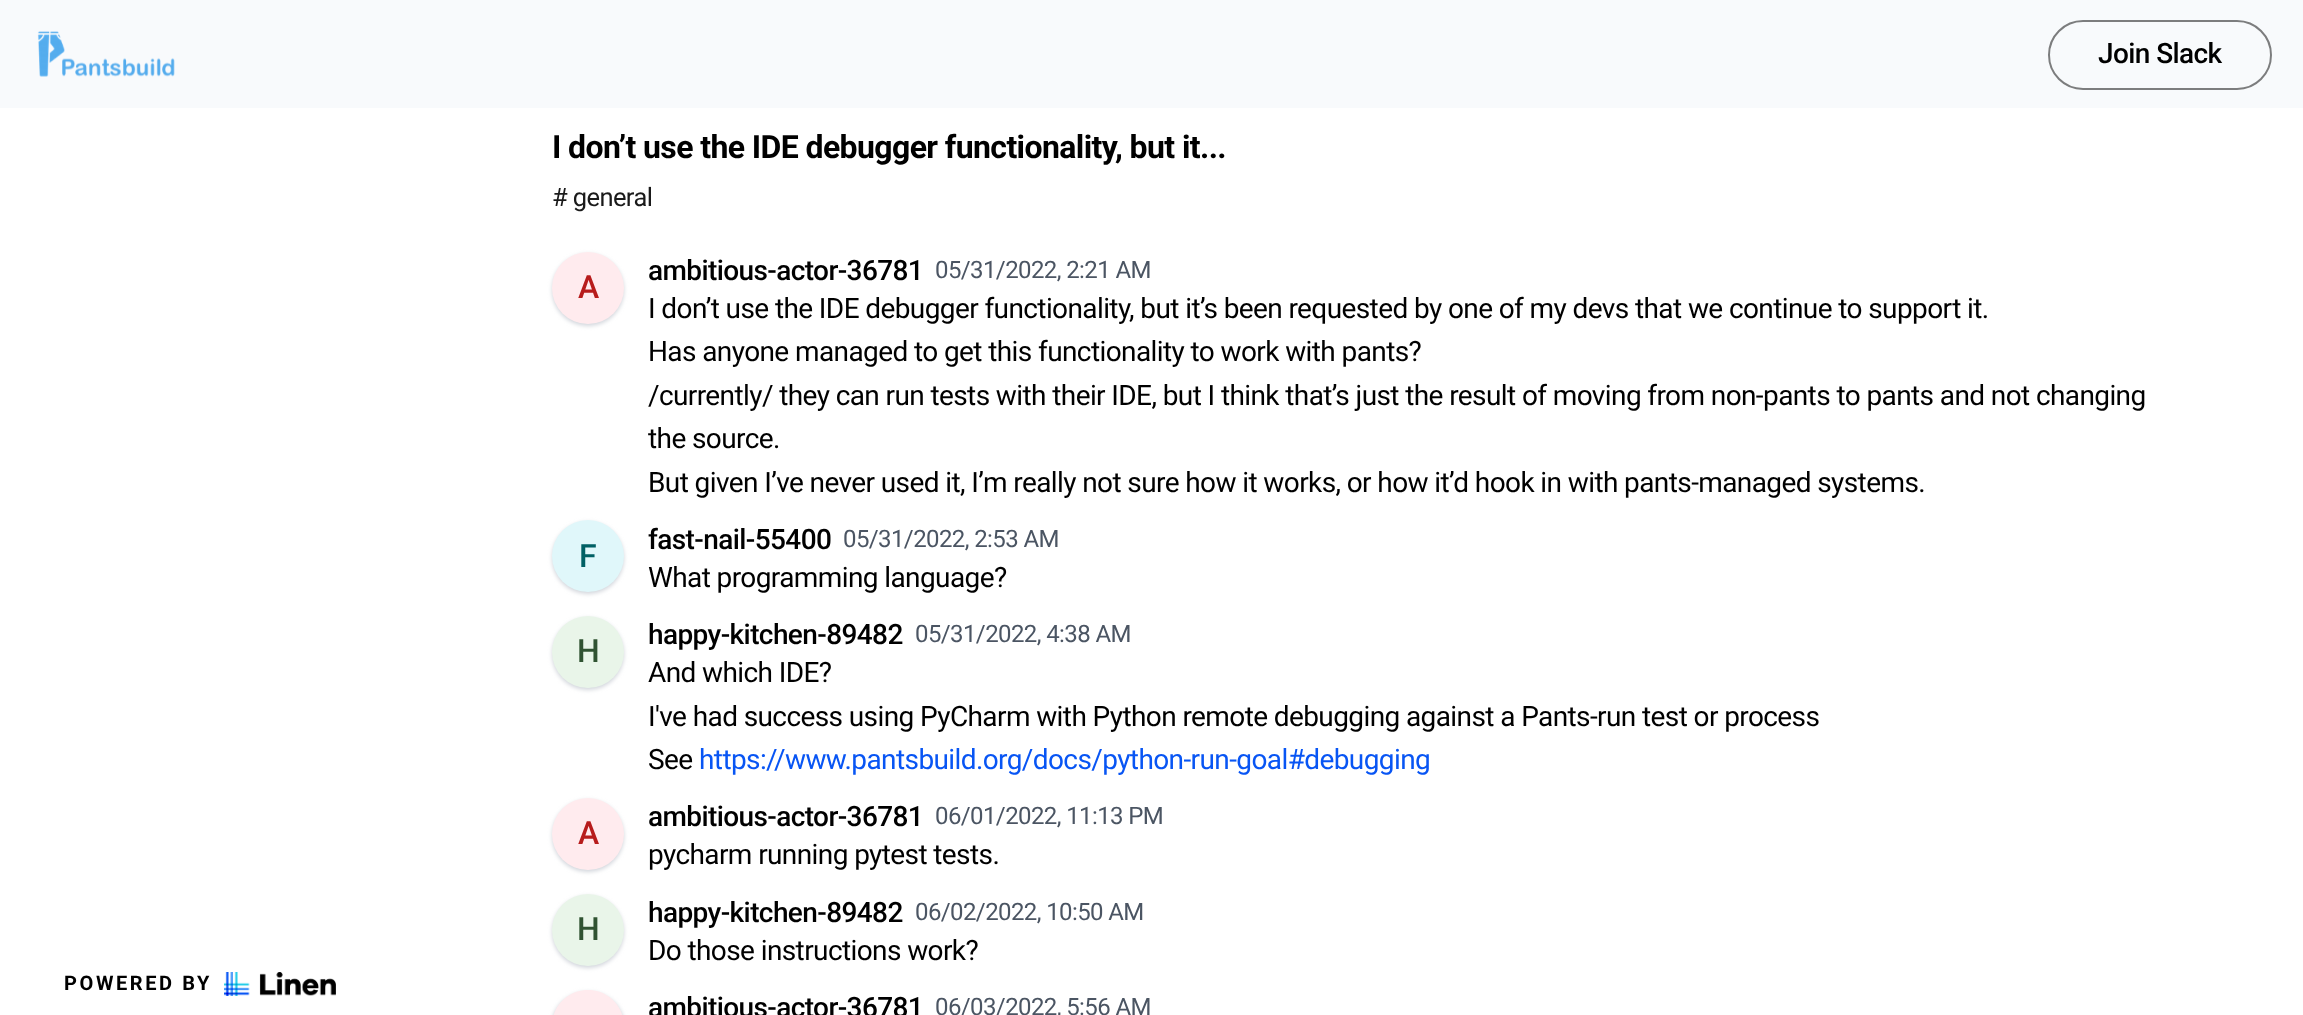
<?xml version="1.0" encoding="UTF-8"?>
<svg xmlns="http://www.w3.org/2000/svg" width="2303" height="1015">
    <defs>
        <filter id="blur1" x="-50%" y="-200%" width="200%" height="500%"><feGaussianBlur stdDeviation="2"/></filter>
    </defs>
    <rect width="100%" height="100%" fill="#FFFFFF"/>
    <rect x="0" y="0" width="2303" height="108" fill="#F8FAFC"/>
    <image x="37" y="31" width="138" height="46" href="img_01.png"/>
    <rect x="2049" y="21" width="222" height="68" rx="34" fill="none" stroke="#7C7D7E" stroke-width="2"/>
    <text x="2098" y="63" font-family="Roboto" font-size="28" font-weight="500" letter-spacing="-0.6" fill="#000000">Join Slack</text>
    <text x="64" y="990" font-family="Roboto" font-size="20" font-weight="700" letter-spacing="2.6" fill="#000000">POWERED BY</text>
    <image x="224" y="972" width="112" height="24" href="img_02.png"/>
    <text x="552" y="158" font-family="Roboto" font-size="32" font-weight="700" letter-spacing="-0.6" fill="#000000">I don’t use the IDE debugger functionality, but it...</text>
    <text x="552" y="206" font-family="Roboto" font-size="25.5" letter-spacing="-0.6" fill="#1A1A1A"># general</text>
    <rect x="552" y="254" width="72" height="72" rx="36" fill="#D1D5DB" filter="url(#blur1)"/>
    <circle cx="588" cy="288" r="36" fill="#FFEBEE"/>
    <text x="578" y="298" font-family="Roboto" font-size="32" font-weight="500" letter-spacing="-0.6" fill="#B71C1C">A</text>
    <text x="648" y="280" font-family="Roboto" font-size="28" font-weight="500" letter-spacing="-0.6" fill="#000000">ambitious-actor-36781</text>
    <text x="935" y="278" font-family="Roboto" font-size="24" letter-spacing="-0.6" fill="#4B5563">05/31/2022, 2:21 AM</text>
    <text font-family="Roboto" font-size="28" letter-spacing="-0.6" fill="#000000">
        <tspan x="648" y="318">I don’t use the IDE debugger functionality, but it’s been requested by one of my devs that we continue to support it.</tspan>
        <tspan x="648" y="361">Has anyone managed to get this functionality to work with pants?</tspan>
        <tspan x="648" y="405">/currently/ they can run tests with their IDE, but I think that’s just the result of moving from non-pants to pants and not changing</tspan>
        <tspan x="648" y="448">the source.</tspan>
        <tspan x="648" y="492">But given I’ve never used it, I’m really not sure how it works, or how it’d hook in with pants-managed systems.</tspan>
    </text>
    <rect x="552" y="522" width="72" height="72" rx="36" fill="#D1D5DB" filter="url(#blur1)"/>
    <circle cx="588" cy="556" r="36" fill="#E0F7FA"/>
    <text x="579" y="567" font-family="Roboto" font-size="32" font-weight="500" letter-spacing="-0.6" fill="#006064">F</text>
    <text x="648" y="549" font-family="Roboto" font-size="28" font-weight="500" letter-spacing="-0.6" fill="#000000">fast-nail-55400</text>
    <text x="843" y="547" font-family="Roboto" font-size="24" letter-spacing="-0.6" fill="#4B5563">05/31/2022, 2:53 AM</text>
    <text x="648" y="587" font-family="Roboto" font-size="28" letter-spacing="-0.6" fill="#000000">What programming language?</text>
    <rect x="552" y="618" width="72" height="72" rx="36" fill="#D1D5DB" filter="url(#blur1)"/>
    <circle cx="588" cy="652" r="36" fill="#E9F5E9"/>
    <text x="577" y="662" font-family="Roboto" font-size="32" font-weight="500" letter-spacing="-0.6" fill="#305332">H</text>
    <text x="648" y="644" font-family="Roboto" font-size="28" font-weight="500" letter-spacing="-0.6" fill="#000000">happy-kitchen-89482</text>
    <text x="915" y="642" font-family="Roboto" font-size="24" letter-spacing="-0.6" fill="#4B5563">05/31/2022, 4:38 AM</text>
    <text font-family="Roboto" font-size="28" letter-spacing="-0.6" fill="#000000">
        <tspan x="648" y="682">And which IDE?</tspan>
        <tspan x="648" y="726">I've had success using PyCharm with Python remote debugging against a Pants-run test or process</tspan>
        <tspan x="648" y="769">See</tspan>
    </text>
    <text x="699" y="769" font-family="Roboto" font-size="28" letter-spacing="-0.6" fill="#0855F4">https://www.pantsbuild.org/docs/python-run-goal#debugging</text>
    <rect x="552" y="800" width="72" height="72" rx="36" fill="#D1D5DB" filter="url(#blur1)"/>
    <circle cx="588" cy="834" r="36" fill="#FFEBEE"/>
    <text x="578" y="844" font-family="Roboto" font-size="32" font-weight="500" letter-spacing="-0.6" fill="#B71C1C">A</text>
    <text x="648" y="826" font-family="Roboto" font-size="28" font-weight="500" letter-spacing="-0.6" fill="#000000">ambitious-actor-36781</text>
    <text x="935" y="824" font-family="Roboto" font-size="24" letter-spacing="-0.6" fill="#4B5563">06/01/2022, 11:13 PM</text>
    <text x="648" y="864" font-family="Roboto" font-size="28" letter-spacing="-0.6" fill="#000000">pycharm running pytest tests.</text>
    <rect x="552" y="896" width="72" height="72" rx="36" fill="#D1D5DB" filter="url(#blur1)"/>
    <circle cx="588" cy="930" r="36" fill="#E9F5E9"/>
    <text x="577" y="940" font-family="Roboto" font-size="32" font-weight="500" letter-spacing="-0.6" fill="#305332">H</text>
    <text x="648" y="922" font-family="Roboto" font-size="28" font-weight="500" letter-spacing="-0.6" fill="#000000">happy-kitchen-89482</text>
    <text x="915" y="920" font-family="Roboto" font-size="24" letter-spacing="-0.6" fill="#4B5563">06/02/2022, 10:50 AM</text>
    <text x="648" y="960" font-family="Roboto" font-size="28" letter-spacing="-0.6" fill="#000000">Do those instructions work?</text>
    <rect x="552" y="992" width="72" height="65" rx="36" fill="#D1D5DB" filter="url(#blur1)"/>
    <path d="M 588 990 C 608 990 624 1006 624 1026 V 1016 H 552 V 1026 C 552 1006 568 990 588 990 Z" fill="#FFEBEE"/>
    <text x="648" y="1017" font-family="Roboto" font-size="28" font-weight="500" letter-spacing="-0.6" fill="#000000">ambitious-actor-36781</text>
    <text x="935" y="1015" font-family="Roboto" font-size="24" letter-spacing="-0.6" fill="#4B5563">06/03/2022, 5:56 AM</text>
</svg>
